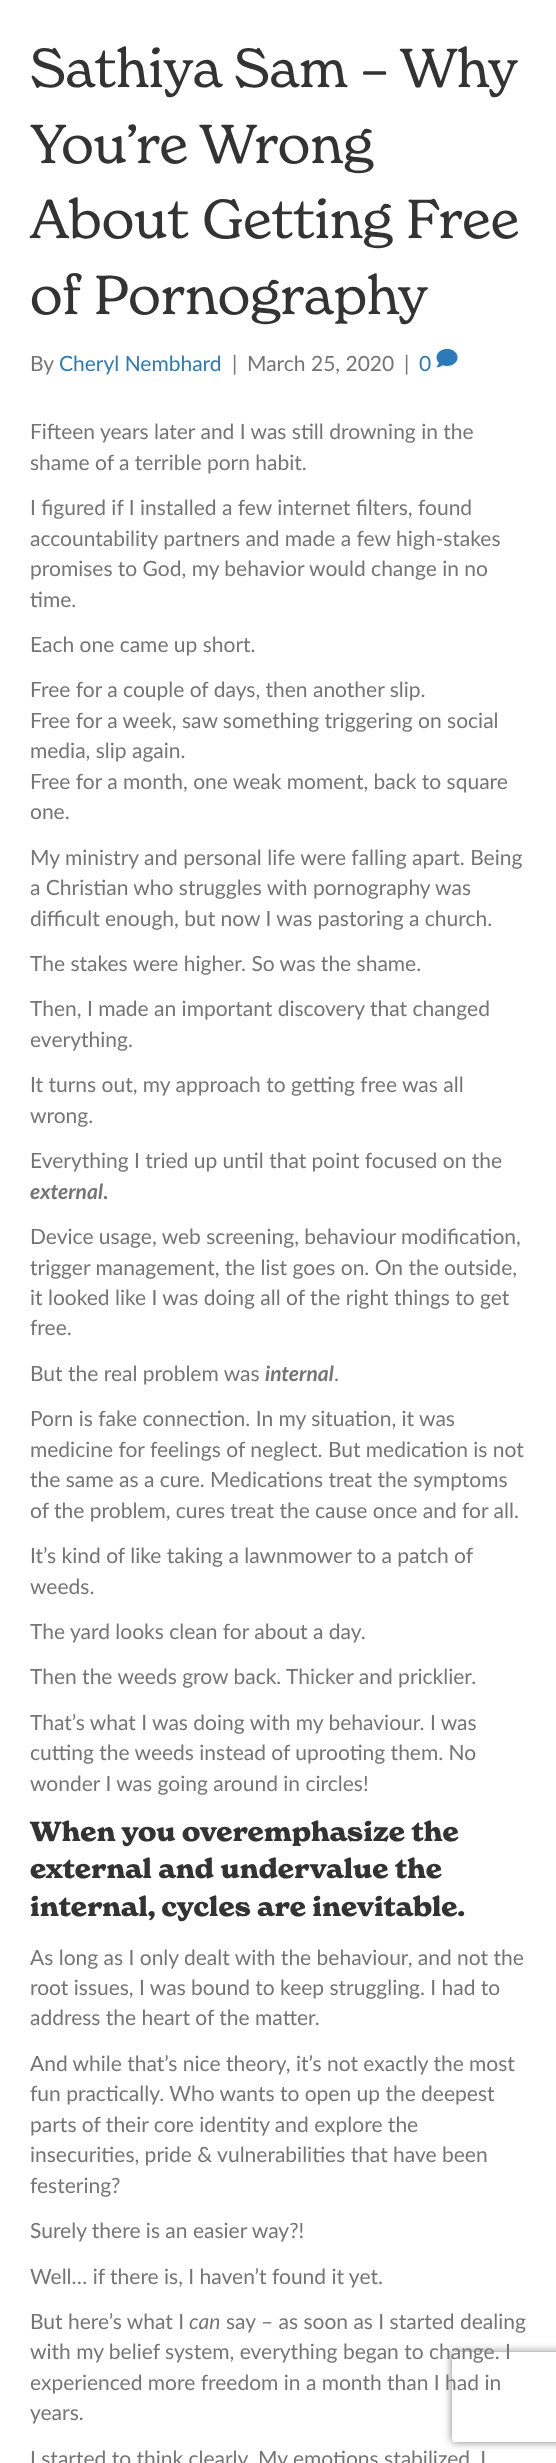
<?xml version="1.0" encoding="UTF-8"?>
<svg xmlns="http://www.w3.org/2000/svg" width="556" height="2463">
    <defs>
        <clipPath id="clip1"><path d="M 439 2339 H 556 V 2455 H 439 Z M 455 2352 H 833 C 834.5 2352 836 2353.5 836 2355 V 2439 C 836 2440.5 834.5 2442 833 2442 H 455 C 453.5 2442 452 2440.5 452 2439 V 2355 C 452 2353.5 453.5 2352 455 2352 Z" clip-rule="evenodd"/></clipPath>
        <filter id="blur1" x="-50%" y="-200%" width="200%" height="500%"><feGaussianBlur stdDeviation="4"/></filter>
    </defs>
    <rect width="100%" height="100%" fill="#FFFFFF"/>
    <text font-family="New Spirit" font-size="54" fill="#333333">
        <tspan x="30" y="87" word-spacing="-0.5">Sathiya Sam – Why</tspan>
        <tspan x="30" y="163">You’re Wrong</tspan>
        <tspan x="30" y="238">About Getting Free</tspan>
        <tspan x="30" y="314">of Pornography</tspan>
    </text>
    <text x="30" y="371" font-family="Lato" font-size="21" fill="#757575">By</text>
    <text x="59" y="371" font-family="Lato" font-size="21" fill="#2B7BB9">Cheryl Nembhard</text>
    <text x="232" y="371" font-family="Lato" font-size="21" fill="#757575">|</text>
    <text x="247" y="371" font-family="Lato" font-size="21" fill="#757575">March 25, 2020</text>
    <text x="404" y="371" font-family="Lato" font-size="21" fill="#757575">|</text>
    <text x="419" y="371" font-family="Lato" font-size="21" fill="#2B7BB9">0</text>
    <image x="436" y="348" width="22" height="20" href="img_01.png"/>
    <text font-family="Lato" font-size="21" fill="#757575">
        <tspan x="30" y="439">Fifteen years later and I was still drowning in the</tspan>
        <tspan x="30" y="470">shame of a terrible porn habit.</tspan>
    </text>
    <text font-family="Lato" font-size="21" fill="#757575">
        <tspan x="30" y="515">I figured if I installed a few internet filters, found</tspan>
        <tspan x="30" y="546">accountability partners and made a few high-stakes</tspan>
        <tspan x="30" y="576">promises to God, my behavior would change in no</tspan>
        <tspan x="30" y="607">time.</tspan>
    </text>
    <text x="30" y="652" font-family="Lato" font-size="21" fill="#757575">Each one came up short.</text>
    <text font-family="Lato" font-size="21" fill="#757575">
        <tspan x="30" y="697">Free for a couple of days, then another slip.</tspan>
        <tspan x="30" y="728">Free for a week, saw something triggering on social</tspan>
        <tspan x="30" y="758">media, slip again.</tspan>
        <tspan x="30" y="789">Free for a month, one weak moment, back to square</tspan>
        <tspan x="30" y="819">one.</tspan>
    </text>
    <text font-family="Lato" font-size="21" fill="#757575">
        <tspan x="30" y="865">My ministry and personal life were falling apart. Being</tspan>
        <tspan x="30" y="895">a Christian who struggles with pornography was</tspan>
        <tspan x="30" y="926">difficult enough, but now I was pastoring a church.</tspan>
    </text>
    <text x="30" y="971" font-family="Lato" font-size="21" fill="#757575">The stakes were higher. So was the shame.</text>
    <text font-family="Lato" font-size="21" fill="#757575">
        <tspan x="30" y="1016">Then, I made an important discovery that changed</tspan>
        <tspan x="30" y="1047">everything.</tspan>
    </text>
    <text font-family="Lato" font-size="21" fill="#757575">
        <tspan x="30" y="1092">It turns out, my approach to getting free was all</tspan>
        <tspan x="30" y="1123">wrong.</tspan>
    </text>
    <text x="30" y="1168" font-family="Lato" font-size="21" fill="#757575">Everything I tried up until that point focused on the</text>
    <text x="30" y="1199" font-family="Lato" font-size="21" font-weight="700" font-style="italic" fill="#757575">external</text>
    <text x="103" y="1199" font-family="Lato" font-size="21" font-weight="700" fill="#757575">.</text>
    <text font-family="Lato" font-size="21" fill="#757575">
        <tspan x="30" y="1244">Device usage, web screening, behaviour modification,</tspan>
        <tspan x="30" y="1275">trigger management, the list goes on. On the outside,</tspan>
        <tspan x="30" y="1305">it looked like I was doing all of the right things to get</tspan>
        <tspan x="30" y="1335">free.</tspan>
    </text>
    <text x="30" y="1381" font-family="Lato" font-size="21" fill="#757575">But the real problem was</text>
    <text x="265" y="1381" font-family="Lato" font-size="21" font-weight="700" font-style="italic" fill="#757575">internal</text>
    <text x="334" y="1381" font-family="Lato" font-size="21" fill="#757575">.</text>
    <text font-family="Lato" font-size="21" fill="#757575">
        <tspan x="30" y="1426">Porn is fake connection. In my situation, it was</tspan>
        <tspan x="30" y="1457">medicine for feelings of neglect. But medication is not</tspan>
        <tspan x="30" y="1487">the same as a cure. Medications treat the symptoms</tspan>
        <tspan x="30" y="1518">of the problem, cures treat the cause once and for all.</tspan>
    </text>
    <text font-family="Lato" font-size="21" fill="#757575">
        <tspan x="30" y="1563">It’s kind of like taking a lawnmower to a patch of</tspan>
        <tspan x="30" y="1594">weeds.</tspan>
    </text>
    <text x="30" y="1639" font-family="Lato" font-size="21" fill="#757575">The yard looks clean for about a day.</text>
    <text x="30" y="1684" font-family="Lato" font-size="21" fill="#757575">Then the weeds grow back. Thicker and pricklier.</text>
    <text font-family="Lato" font-size="21" fill="#757575">
        <tspan x="30" y="1730">That’s what I was doing with my behaviour. I was</tspan>
        <tspan x="30" y="1760">cutting the weeds instead of uprooting them. No</tspan>
        <tspan x="30" y="1791">wonder I was going around in circles!</tspan>
    </text>
    <text font-family="New Spirit" font-size="27" font-weight="700" fill="#333333">
        <tspan x="30" y="1841">When you overemphasize the</tspan>
        <tspan x="30" y="1878">external and undervalue the</tspan>
        <tspan x="30" y="1916">internal, cycles are inevitable.</tspan>
    </text>
    <text font-family="Lato" font-size="21" fill="#757575">
        <tspan x="30" y="1965">As long as I only dealt with the behaviour, and not the</tspan>
        <tspan x="30" y="1995">root issues, I was bound to keep struggling. I had to</tspan>
        <tspan x="30" y="2025">address the heart of the matter.</tspan>
    </text>
    <text font-family="Lato" font-size="21" fill="#757575">
        <tspan x="30" y="2071">And while that’s nice theory, it’s not exactly the most</tspan>
        <tspan x="30" y="2101">fun practically. Who wants to open up the deepest</tspan>
        <tspan x="30" y="2132">parts of their core identity and explore the</tspan>
        <tspan x="30" y="2162">insecurities, pride &amp; vulnerabilities that have been</tspan>
        <tspan x="30" y="2193">festering?</tspan>
    </text>
    <text x="30" y="2238" font-family="Lato" font-size="21" fill="#757575">Surely there is an easier way?!</text>
    <text x="30" y="2284" font-family="Lato" font-size="21" fill="#757575">Well… if there is, I haven’t found it yet.</text>
    <text x="30" y="2329" font-family="Lato" font-size="21" fill="#757575">But here’s what I</text>
    <text x="189" y="2329" font-family="Lato" font-size="21" font-style="italic" fill="#757575">can</text>
    <text x="226" y="2329" font-family="Lato" font-size="21" fill="#757575">say – as soon as I started dealing</text>
    <text font-family="Lato" font-size="21" fill="#757575">
        <tspan x="30" y="2359">with my belief system, everything began to change. I</tspan>
        <tspan x="30" y="2390">experienced more freedom in a month than I had in</tspan>
        <tspan x="30" y="2420">years.</tspan>
    </text>
    <text x="30" y="2466" font-family="Lato" font-size="21" fill="#757575">I started to think clearly. My emotions stabilized. I</text>
    <g clip-path="url(#clip1)">
        <rect x="452" y="2352" width="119" height="90" rx="3" fill="#808080" filter="url(#blur1)"/>
    </g>
</svg>
